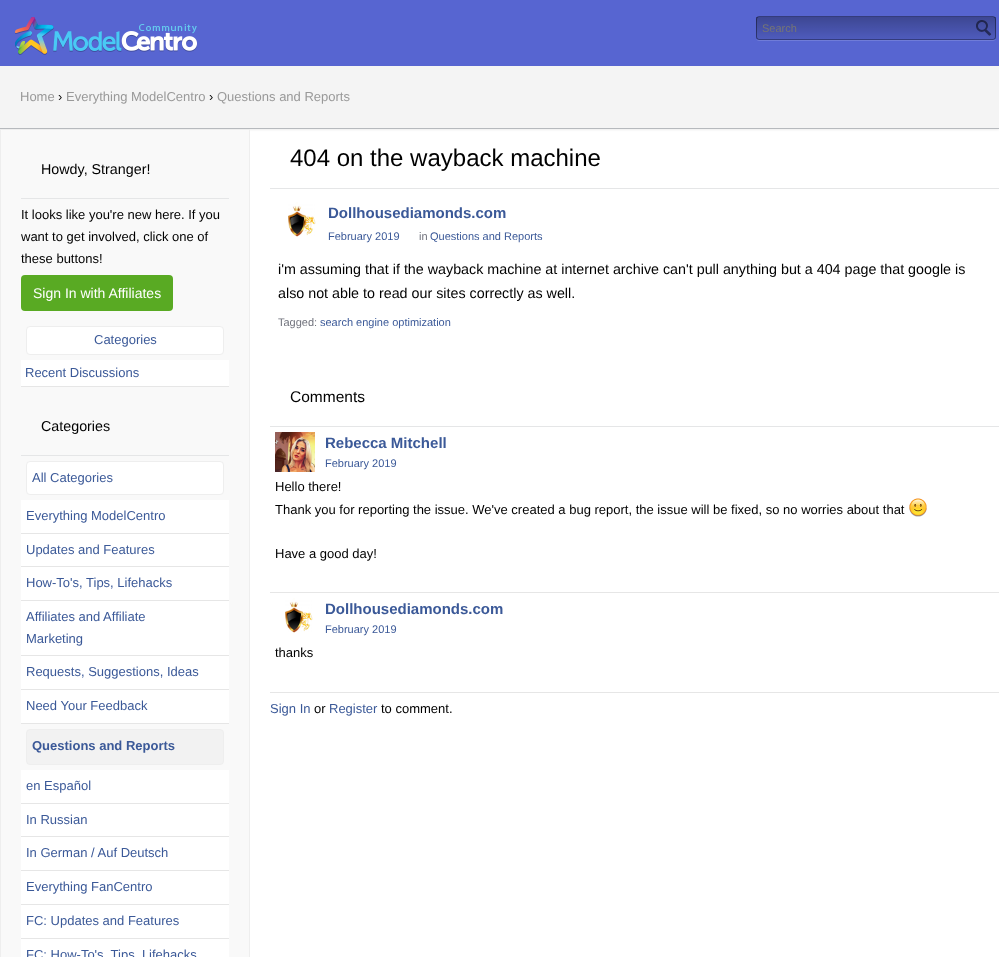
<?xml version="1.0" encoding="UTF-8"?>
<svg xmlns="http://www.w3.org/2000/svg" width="999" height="957">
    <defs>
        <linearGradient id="g1" gradientUnits="userSpaceOnUse" x1="876" y1="17" x2="876" y2="39"><stop offset="0" stop-color="#000000" stop-opacity="0.3"/><stop offset="1" stop-color="#000000" stop-opacity="0.1"/></linearGradient>
        <filter id="blur1" x="-50%" y="-200%" width="200%" height="500%"><feGaussianBlur stdDeviation="1"/></filter>
    </defs>
    <rect width="100%" height="100%" fill="#FFFFFF"/>
    <rect x="0" y="0" width="999" height="66" fill="#5765D1"/>
    <image x="15" y="17" width="182" height="38" href="img_01.png"/>
    <path d="M 756 37 C 756 39 757 41 759 41 H 993 C 995 41 996 39 996 37 C 996 39 995 40 993 40 H 759 C 757 40 756 39 756 37 Z" fill="#707CD8"/>
    <rect x="756" y="17" width="240" height="22" fill="url(#g1)"/>
    <rect x="756.5" y="16.5" width="239" height="23" rx="2.5" fill="none" stroke="#000000" stroke-opacity="0.4"/>
    <text x="762" y="32" font-family="Liberation Sans" font-size="11" fill="#757575">Search</text>
    <image x="976" y="20" width="16" height="16" href="img_02.png"/>
    <rect x="0" y="67" width="999" height="63" fill="#000000" fill-opacity="0.07" filter="url(#blur1)"/>
    <rect x="0" y="66" width="999" height="62" fill="#F4F4F4"/>
    <rect x="0" y="128" width="999" height="1" fill="#B6B9BD"/>
    <text x="20" y="101" font-family="Liberation Sans" font-size="13" fill="#999999">Home</text>
    <text x="58" y="101" font-family="Liberation Sans" font-size="13" fill="#000000">›</text>
    <text x="66" y="101" font-family="Liberation Sans" font-size="13" fill="#999999">Everything ModelCentro</text>
    <text x="209" y="101" font-family="Liberation Sans" font-size="13" fill="#000000">›</text>
    <text x="217" y="101" font-family="Liberation Sans" font-size="13" fill="#999999">Questions and Reports</text>
    <rect x="1" y="131" width="248" height="826" fill="#F9F9F9"/>
    <rect x="0.5" y="129.5" width="249" height="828" fill="none" stroke="#EEEEEE"/>
    <rect x="21" y="198" width="208" height="1" fill="#E5E6E7"/>
    <text x="41" y="174" font-family="Liberation Sans" font-size="14.3" fill="#000000">Howdy, Stranger!</text>
    <text font-family="Liberation Sans" font-size="13" fill="#000000">
        <tspan x="21" y="219">It looks like you're new here. If you</tspan>
        <tspan x="21" y="241">want to get involved, click one of</tspan>
        <tspan x="21" y="263">these buttons!</tspan>
    </text>
    <rect x="21" y="275" width="152" height="36" rx="4" fill="#59AA23"/>
    <text x="33" y="298" font-family="Liberation Sans" font-size="14" fill="#FFFFFF">Sign In with Affiliates</text>
    <rect x="26.5" y="326.5" width="197" height="28" rx="3.5" fill="#FFFFFF" stroke="#EEEEEE"/>
    <text x="94" y="344" font-family="Liberation Sans" font-size="13" fill="#3B5998">Categories</text>
    <rect x="21" y="360" width="208" height="26" fill="#FFFFFF"/>
    <rect x="21" y="386" width="208" height="1" fill="#E6E6E6"/>
    <text x="25" y="377" font-family="Liberation Sans" font-size="13" fill="#3B5998">Recent Discussions</text>
    <rect x="21" y="455" width="208" height="1" fill="#E5E6E7"/>
    <text x="41" y="431" font-family="Liberation Sans" font-size="14.3" fill="#000000">Categories</text>
    <rect x="26.5" y="461.5" width="197" height="33" rx="3.5" fill="#FFFFFF" stroke="#EEEEEE"/>
    <text x="32" y="482" font-family="Liberation Sans" font-size="13" fill="#3B5998">All Categories</text>
    <rect x="21" y="500" width="208" height="33" fill="#FFFFFF"/>
    <rect x="21" y="533" width="208" height="1" fill="#E6E6E6"/>
    <text x="26" y="520" font-family="Liberation Sans" font-size="13" fill="#3B5998">Everything ModelCentro</text>
    <rect x="21" y="534" width="208" height="32" fill="#FFFFFF"/>
    <rect x="21" y="566" width="208" height="1" fill="#E6E6E6"/>
    <text x="26" y="554" font-family="Liberation Sans" font-size="13" fill="#3B5998">Updates and Features</text>
    <rect x="21" y="567" width="208" height="33" fill="#FFFFFF"/>
    <rect x="21" y="600" width="208" height="1" fill="#E6E6E6"/>
    <text x="26" y="587" font-family="Liberation Sans" font-size="13" fill="#3B5998">How-To's, Tips, Lifehacks</text>
    <rect x="21" y="601" width="208" height="54" fill="#FFFFFF"/>
    <rect x="21" y="655" width="208" height="1" fill="#E6E6E6"/>
    <text font-family="Liberation Sans" font-size="13" fill="#3B5998">
        <tspan x="26" y="621">Affiliates and Affiliate</tspan>
        <tspan x="26" y="643">Marketing</tspan>
    </text>
    <rect x="21" y="656" width="208" height="33" fill="#FFFFFF"/>
    <rect x="21" y="689" width="208" height="1" fill="#E6E6E6"/>
    <text x="26" y="676" font-family="Liberation Sans" font-size="13" fill="#3B5998">Requests, Suggestions, Ideas</text>
    <rect x="21" y="690" width="208" height="33" fill="#FFFFFF"/>
    <rect x="21" y="723" width="208" height="1" fill="#E6E6E6"/>
    <text x="26" y="710" font-family="Liberation Sans" font-size="13" fill="#3B5998">Need Your Feedback</text>
    <rect x="26.5" y="729.5" width="197" height="35" rx="3.5" fill="#F2F2F2" stroke="#EEEEEE"/>
    <text x="32" y="750" font-family="Liberation Sans" font-size="13" font-weight="700" fill="#3B5998">Questions and Reports</text>
    <rect x="21" y="770" width="208" height="33" fill="#FFFFFF"/>
    <rect x="21" y="803" width="208" height="1" fill="#E6E6E6"/>
    <text x="26" y="790" font-family="Liberation Sans" font-size="13" fill="#3B5998">en Español</text>
    <rect x="21" y="804" width="208" height="32" fill="#FFFFFF"/>
    <rect x="21" y="836" width="208" height="1" fill="#E6E6E6"/>
    <text x="26" y="824" font-family="Liberation Sans" font-size="13" fill="#3B5998">In Russian</text>
    <rect x="21" y="837" width="208" height="33" fill="#FFFFFF"/>
    <rect x="21" y="870" width="208" height="1" fill="#E6E6E6"/>
    <text x="26" y="857" font-family="Liberation Sans" font-size="13" fill="#3B5998">In German / Auf Deutsch</text>
    <rect x="21" y="871" width="208" height="33" fill="#FFFFFF"/>
    <rect x="21" y="904" width="208" height="1" fill="#E6E6E6"/>
    <text x="26" y="891" font-family="Liberation Sans" font-size="13" fill="#3B5998">Everything FanCentro</text>
    <rect x="21" y="905" width="208" height="33" fill="#FFFFFF"/>
    <rect x="21" y="938" width="208" height="1" fill="#E6E6E6"/>
    <text x="26" y="925" font-family="Liberation Sans" font-size="13" fill="#3B5998">FC: Updates and Features</text>
    <rect x="21" y="939" width="208" height="18" fill="#FFFFFF"/>
    <text x="26" y="959" font-family="Liberation Sans" font-size="13" fill="#3B5998">FC: How-To's, Tips, Lifehacks</text>
    <rect x="270" y="188" width="729" height="1" fill="#E5E6E7"/>
    <text x="290" y="166" font-family="Liberation Sans" font-size="24" fill="#000000">404 on the wayback machine</text>
    <image x="288" y="202" width="28" height="35" href="img_03.png"/>
    <text x="328" y="218" font-family="Liberation Sans" font-size="15" font-weight="700" fill="#3B5998">Dollhousediamonds.com</text>
    <text x="328" y="240" font-family="Liberation Sans" font-size="11" fill="#3B5998">February 2019</text>
    <text x="419" y="240" font-family="Liberation Sans" font-size="11" fill="#70727C">in</text>
    <text x="430" y="240" font-family="Liberation Sans" font-size="11" fill="#3B5998">Questions and Reports</text>
    <text font-family="Liberation Sans" font-size="14.3" fill="#000000">
        <tspan x="278" y="274">i'm assuming that if the wayback machine at internet archive can't pull anything but a 404 page that google is</tspan>
        <tspan x="278" y="298">also not able to read our sites correctly as well.</tspan>
    </text>
    <text x="278" y="326" font-family="Liberation Sans" font-size="11" fill="#70727C">Tagged:</text>
    <text x="320" y="326" font-family="Liberation Sans" font-size="11" fill="#3B5998">search engine optimization</text>
    <rect x="270" y="426" width="729" height="1" fill="#E5E6E7"/>
    <text x="290" y="402" font-family="Liberation Sans" font-size="15.5" fill="#000000">Comments</text>
    <rect x="270" y="592" width="729" height="1" fill="#E6E6E6"/>
    <image x="275" y="432" width="40" height="40" href="img_04.png"/>
    <text x="325" y="448" font-family="Liberation Sans" font-size="15" font-weight="700" fill="#3B5998">Rebecca Mitchell</text>
    <text x="325" y="467" font-family="Liberation Sans" font-size="11" fill="#3B5998">February 2019</text>
    <text font-family="Liberation Sans" font-size="13" fill="#000000">
        <tspan x="275" y="491">Hello there!</tspan>
        <tspan x="275" y="514">Thank you for reporting the issue. We've created a bug report, the issue will be fixed, so no worries about that</tspan>
    </text>
    <image x="909" y="498" width="18" height="19" href="img_05.png"/>
    <text x="275" y="558" font-family="Liberation Sans" font-size="13" fill="#000000">Have a good day!</text>
    <rect x="270" y="692" width="729" height="1" fill="#E6E6E6"/>
    <image x="285" y="598" width="28" height="35" href="img_03.png"/>
    <text x="325" y="614" font-family="Liberation Sans" font-size="15" font-weight="700" fill="#3B5998">Dollhousediamonds.com</text>
    <text x="325" y="633" font-family="Liberation Sans" font-size="11" fill="#3B5998">February 2019</text>
    <text x="275" y="657" font-family="Liberation Sans" font-size="13" fill="#000000">thanks</text>
    <text x="270" y="713" font-family="Liberation Sans" font-size="13" fill="#3B5998">Sign In</text>
    <text x="314" y="713" font-family="Liberation Sans" font-size="13" fill="#000000">or</text>
    <text x="329" y="713" font-family="Liberation Sans" font-size="13" fill="#3B5998">Register</text>
    <text x="381" y="713" font-family="Liberation Sans" font-size="13" fill="#000000">to comment.</text>
</svg>
